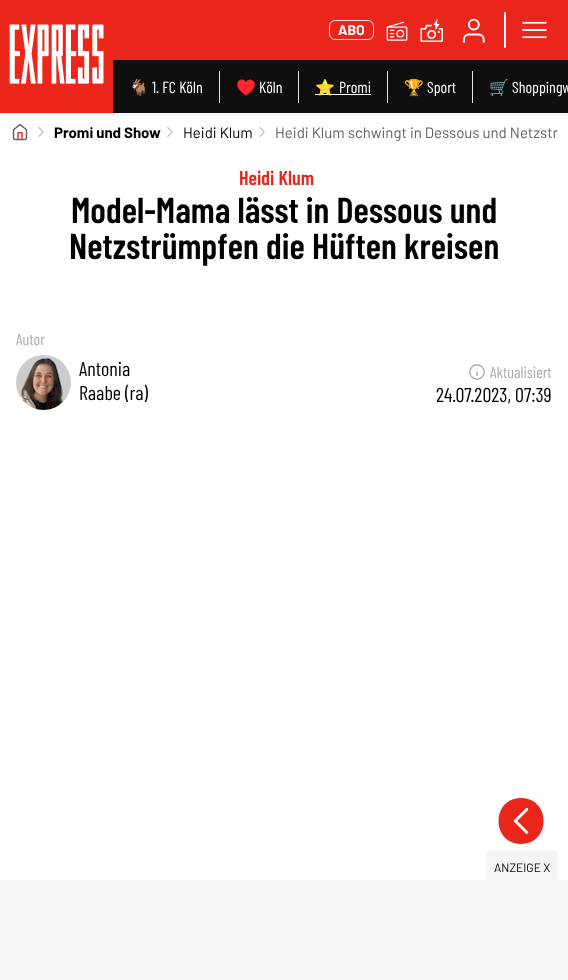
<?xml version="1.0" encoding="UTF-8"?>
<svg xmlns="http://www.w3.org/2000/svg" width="568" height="980">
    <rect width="100%" height="100%" fill="#FFFFFF"/>
    <rect x="0" y="0" width="568" height="60" fill="#E9251C"/>
    <image x="0" y="24" width="113" height="89" href="img_01.png"/>
    <rect x="329.5" y="20.5" width="44" height="19" rx="5.5" fill="none" stroke="#E5E7EB"/>
    <text x="338" y="35" font-family="Barlow" font-size="14" font-weight="700" fill="#FFFFFF">ABO</text>
    <image x="386" y="21" width="22" height="20" href="img_02.png"/>
    <image x="420" y="18" width="23" height="24" href="img_03.png"/>
    <image x="462" y="18" width="23" height="25" href="img_04.png"/>
    <rect x="504" y="12" width="2" height="36" rx="1" fill="#FFFFFF"/>
    <image x="522" y="21" width="25" height="18" href="img_05.png"/>
    <rect x="113" y="60" width="455" height="53" fill="#0F0F0F"/>
    <rect x="219" y="71" width="1" height="32" fill="#E5E7EB"/>
    <text x="129" y="93" font-family="Noto Color Emoji" font-size="16" fill="#FFFFFF">🐐</text>
    <text x="152" y="93" font-family="Barlow Condensed" font-size="16" fill="#FFFFFF">1. FC Köln</text>
    <rect x="298" y="71" width="1" height="32" fill="#E5E7EB"/>
    <text x="236" y="93" font-family="Noto Color Emoji" font-size="16" fill="#FFFFFF">♥️</text>
    <text x="259" y="93" font-family="Barlow Condensed" font-size="16" fill="#FFFFFF">Köln</text>
    <rect x="387" y="71" width="1" height="32" fill="#E5E7EB"/>
    <rect x="315" y="94" width="56" height="1" fill="#FFFFFF"/>
    <text x="315" y="93" font-family="Noto Color Emoji" font-size="16" fill="#FFFFFF">⭐</text>
    <text x="339" y="93" font-family="Barlow Condensed" font-size="16" fill="#FFFFFF">Promi</text>
    <rect x="472" y="71" width="1" height="32" fill="#E5E7EB"/>
    <text x="404" y="93" font-family="Noto Color Emoji" font-size="16" fill="#FFFFFF">🏆</text>
    <text x="427" y="93" font-family="Barlow Condensed" font-size="16" fill="#FFFFFF">Sport</text>
    <text x="489" y="93" font-family="Noto Color Emoji" font-size="16" fill="#FFFFFF">🛒</text>
    <text x="512" y="93" font-family="Barlow Condensed" font-size="16" fill="#FFFFFF">Shoppingw</text>
    <rect x="0" y="113" width="568" height="3" fill="#F5F5F5"/>
    <image x="12" y="123" width="16" height="18" href="img_06.png"/>
    <image x="38" y="127" width="6" height="10" href="img_07.png"/>
    <text x="54" y="138" font-family="Barlow" font-size="15" font-weight="700" fill="#000000">Promi und Show</text>
    <image x="167" y="127" width="6" height="10" href="img_07.png"/>
    <text x="183" y="138" font-family="Barlow" font-size="15" fill="#000000">Heidi Klum</text>
    <image x="259" y="127" width="6" height="10" href="img_07.png"/>
    <text x="275" y="138" font-family="Barlow" font-size="15" fill="#606060">Heidi Klum schwingt in Dessous und Netzstr</text>
    <text x="239" y="185" font-family="Barlow Condensed" font-size="20" font-weight="600" fill="#E9251C">Heidi Klum</text>
    <text x="71" y="223" font-family="Barlow Condensed" font-size="36" font-weight="600" fill="#000000">Model-Mama lässt in Dessous und</text>
    <text x="69" y="259" font-family="Barlow Condensed" font-size="36" font-weight="600" fill="#000000">Netzstrümpfen die Hüften kreisen</text>
    <text x="16" y="345" font-family="Barlow Condensed" font-size="16" fill="#AAAAAA">Autor</text>
    <image x="16" y="355" width="55" height="55" href="img_08.png"/>
    <text font-family="Barlow Condensed" font-size="20" fill="#000000">
        <tspan x="79" y="376">Antonia</tspan>
        <tspan x="79" y="400">Raabe (ra)</tspan>
    </text>
    <image x="469" y="364" width="16" height="16" href="img_09.png"/>
    <text x="490" y="378" font-family="Barlow Condensed" font-size="16" fill="#AAAAAA">Aktualisiert</text>
    <text x="436" y="402" font-family="Barlow Condensed" font-size="20" fill="#000000">24.07.2023, 07:39</text>
    <path d="M 521 844 C 491 844 491 798 521 798 C 551 798 551 844 521 844 Z" fill="#E9251C"/>
    <image x="513" y="807" width="16" height="27" href="img_10.png"/>
    <path d="M 490 850 H 554 C 556 850 558 852 558 854 V 880 H 486 V 854 C 486 852 488 850 490 850 Z" fill="#F5F5F5"/>
    <text x="494" y="872" font-family="Barlow" font-size="12" fill="#000000">ANZEIGE X</text>
    <rect x="0" y="880" width="568" height="100" fill="#F5F5F5"/>
</svg>
